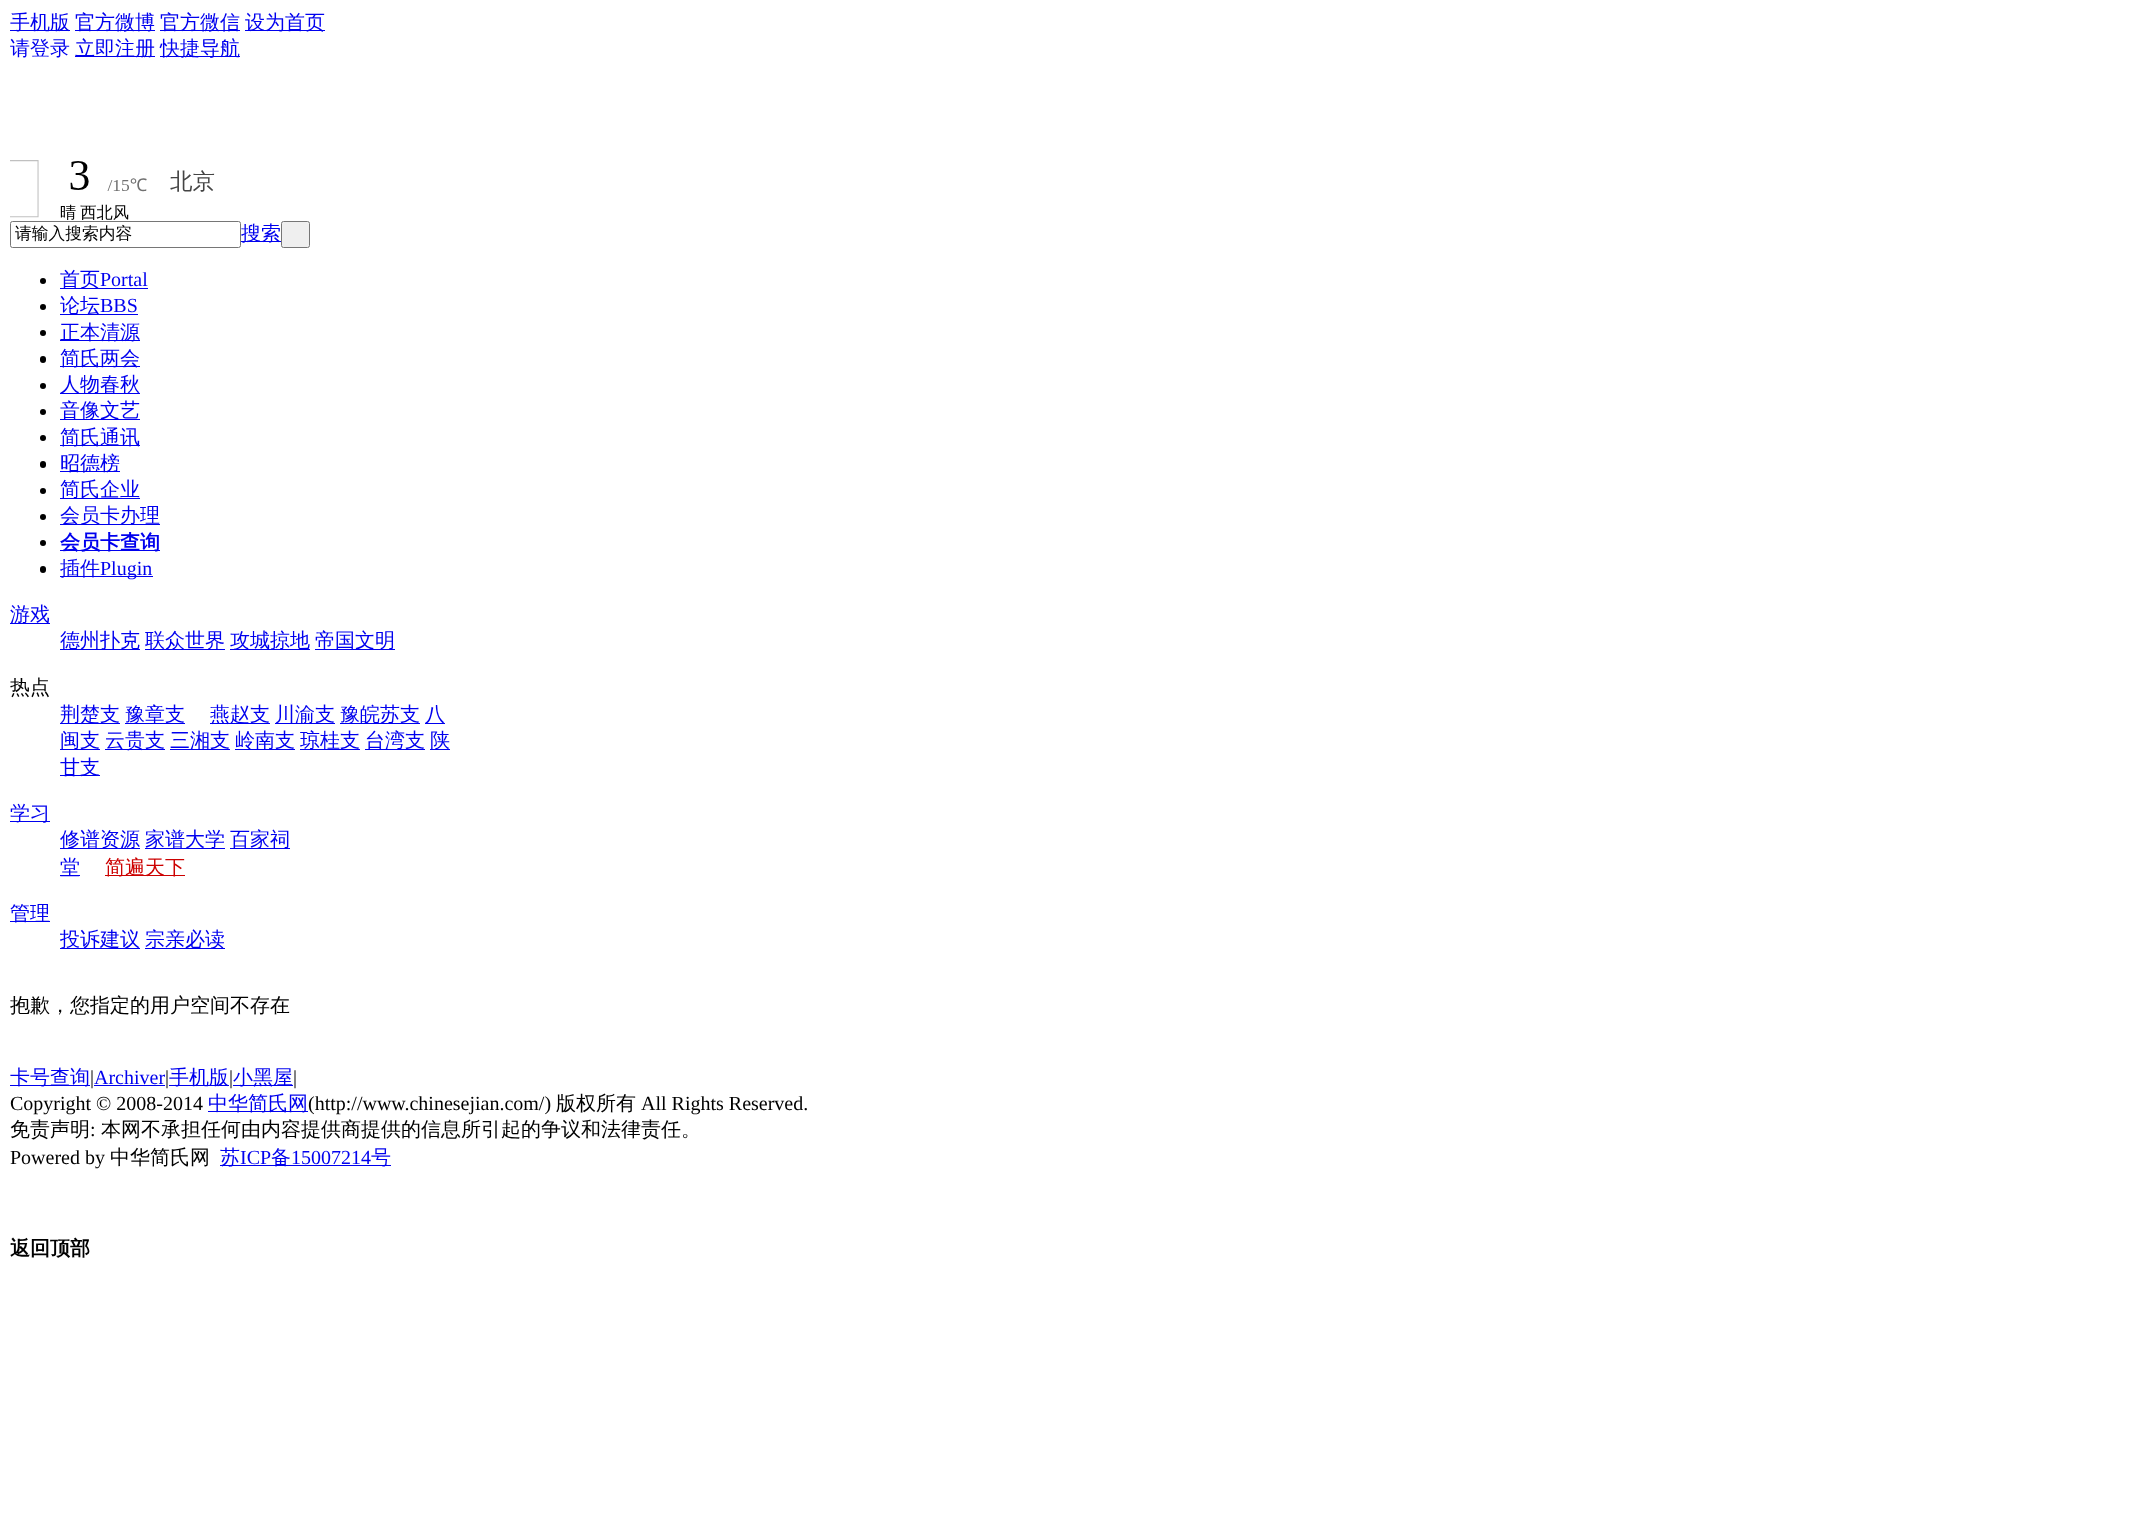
<?xml version="1.0" encoding="UTF-8"?>
<svg xmlns="http://www.w3.org/2000/svg" width="2131" height="1521">
    <rect width="100%" height="100%" fill="#FFFFFF"/>
    <rect x="10" y="30" width="60" height="1" fill="#0000EE"/>
    <text x="10" y="29" font-family="WenQuanYi Zen Hei" font-size="20" font-weight="500" fill="#0000EE">手机版</text>
    <rect x="75" y="30" width="80" height="1" fill="#0000EE"/>
    <text x="75" y="29" font-family="WenQuanYi Zen Hei" font-size="20" font-weight="500" fill="#0000EE">官方微博</text>
    <rect x="160" y="30" width="80" height="1" fill="#0000EE"/>
    <text x="160" y="29" font-family="WenQuanYi Zen Hei" font-size="20" font-weight="500" fill="#0000EE">官方微信</text>
    <rect x="245" y="30" width="80" height="1" fill="#0000EE"/>
    <text x="245" y="29" font-family="WenQuanYi Zen Hei" font-size="20" font-weight="500" fill="#0000EE">设为首页</text>
    <text x="10" y="55" font-family="WenQuanYi Zen Hei" font-size="20" font-weight="500" fill="#0000EE">请登录</text>
    <rect x="75" y="56" width="80" height="1" fill="#0000EE"/>
    <text x="75" y="55" font-family="WenQuanYi Zen Hei" font-size="20" font-weight="500" fill="#0000EE">立即注册</text>
    <rect x="160" y="56" width="80" height="1" fill="#0000EE"/>
    <text x="160" y="55" font-family="WenQuanYi Zen Hei" font-size="20" font-weight="500" fill="#0000EE">快捷导航</text>
    <image x="10" y="160" width="205" height="60" href="img_01.png"/>
    <rect x="10.5" y="221.5" width="230" height="26" rx="2" fill="none" stroke="#767676"/>
    <text x="15" y="239" font-family="WenQuanYi Zen Hei" font-size="16.75" font-weight="500" fill="#000000">请输入搜索内容</text>
    <rect x="241" y="241" width="40" height="1" fill="#0000EE"/>
    <text x="241" y="240" font-family="WenQuanYi Zen Hei" font-size="20" font-weight="500" fill="#0000EE">搜索</text>
    <rect x="281.5" y="221.5" width="28" height="26" rx="2" fill="#EFEFEF" stroke="#767676"/>
    <circle cx="43" cy="281" r="3" fill="#000000"/>
    <rect x="60" y="288" width="88" height="1" fill="#0000EE"/>
    <text x="60" y="286" font-family="WenQuanYi Zen Hei" font-size="20" font-weight="500" fill="#0000EE">首页</text>
    <text x="100" y="286" font-family="Liberation Serif" font-size="20" fill="#0000EE">Portal</text>
    <circle cx="43" cy="307" r="3" fill="#000000"/>
    <rect x="60" y="314" width="78" height="1" fill="#0000EE"/>
    <text x="60" y="312" font-family="WenQuanYi Zen Hei" font-size="20" font-weight="500" fill="#0000EE">论坛</text>
    <text x="100" y="312" font-family="Liberation Serif" font-size="20" fill="#0000EE">BBS</text>
    <circle cx="43" cy="333" r="3" fill="#000000"/>
    <rect x="60" y="340" width="80" height="1" fill="#0000EE"/>
    <text x="60" y="339" font-family="WenQuanYi Zen Hei" font-size="20" font-weight="500" fill="#0000EE">正本清源</text>
    <rect x="40" y="356" width="6" height="7" rx="3" fill="#000000"/>
    <rect x="60" y="366" width="80" height="1" fill="#0000EE"/>
    <text x="60" y="365" font-family="WenQuanYi Zen Hei" font-size="20" font-weight="500" fill="#0000EE">简氏两会</text>
    <circle cx="43" cy="386" r="3" fill="#000000"/>
    <rect x="60" y="393" width="80" height="1" fill="#0000EE"/>
    <text x="60" y="391" font-family="WenQuanYi Zen Hei" font-size="20" font-weight="500" fill="#0000EE">人物春秋</text>
    <circle cx="43" cy="412" r="3" fill="#000000"/>
    <rect x="60" y="419" width="80" height="1" fill="#0000EE"/>
    <text x="60" y="417" font-family="WenQuanYi Zen Hei" font-size="20" font-weight="500" fill="#0000EE">音像文艺</text>
    <circle cx="43" cy="438" r="3" fill="#000000"/>
    <rect x="60" y="445" width="80" height="1" fill="#0000EE"/>
    <text x="60" y="444" font-family="WenQuanYi Zen Hei" font-size="20" font-weight="500" fill="#0000EE">简氏通讯</text>
    <rect x="40" y="461" width="6" height="7" rx="3" fill="#000000"/>
    <rect x="60" y="471" width="60" height="1" fill="#0000EE"/>
    <text x="60" y="470" font-family="WenQuanYi Zen Hei" font-size="20" font-weight="500" fill="#0000EE">昭德榜</text>
    <circle cx="43" cy="491" r="3" fill="#000000"/>
    <rect x="60" y="498" width="80" height="1" fill="#0000EE"/>
    <text x="60" y="496" font-family="WenQuanYi Zen Hei" font-size="20" font-weight="500" fill="#0000EE">简氏企业</text>
    <circle cx="43" cy="517" r="3" fill="#000000"/>
    <rect x="60" y="524" width="100" height="1" fill="#0000EE"/>
    <text x="60" y="522" font-family="WenQuanYi Zen Hei" font-size="20" font-weight="500" fill="#0000EE">会员卡办理</text>
    <circle cx="43" cy="543" r="3" fill="#000000"/>
    <rect x="60" y="550" width="100" height="1" fill="#0000EE"/>
    <text x="60" y="549" font-family="WenQuanYi Zen Hei" font-size="20" font-weight="700" fill="#0000EE">会员卡查询</text>
    <rect x="40" y="566" width="6" height="7" rx="3" fill="#000000"/>
    <rect x="60" y="576" width="93" height="1" fill="#0000EE"/>
    <text x="60" y="575" font-family="WenQuanYi Zen Hei" font-size="20" font-weight="500" fill="#0000EE">插件</text>
    <text x="100" y="575" font-family="Liberation Serif" font-size="20" fill="#0000EE">Plugin</text>
    <rect x="10" y="623" width="40" height="1" fill="#0000EE"/>
    <text x="10" y="621" font-family="WenQuanYi Zen Hei" font-size="20" font-weight="500" fill="#0000EE">游戏</text>
    <rect x="60" y="649" width="80" height="1" fill="#0000EE"/>
    <text x="60" y="647" font-family="WenQuanYi Zen Hei" font-size="20" font-weight="500" fill="#0000EE">德州扑克</text>
    <rect x="145" y="649" width="80" height="1" fill="#0000EE"/>
    <text x="145" y="647" font-family="WenQuanYi Zen Hei" font-size="20" font-weight="500" fill="#0000EE">联众世界</text>
    <rect x="230" y="649" width="80" height="1" fill="#0000EE"/>
    <text x="230" y="647" font-family="WenQuanYi Zen Hei" font-size="20" font-weight="500" fill="#0000EE">攻城掠地</text>
    <rect x="315" y="649" width="80" height="1" fill="#0000EE"/>
    <text x="315" y="647" font-family="WenQuanYi Zen Hei" font-size="20" font-weight="500" fill="#0000EE">帝国文明</text>
    <text x="10" y="694" font-family="WenQuanYi Zen Hei" font-size="20" font-weight="500" fill="#000000">热点</text>
    <rect x="60" y="723" width="60" height="1" fill="#0000EE"/>
    <text x="60" y="721" font-family="WenQuanYi Zen Hei" font-size="20" font-weight="500" fill="#0000EE">荆楚支</text>
    <rect x="125" y="723" width="60" height="1" fill="#0000EE"/>
    <text x="125" y="721" font-family="WenQuanYi Zen Hei" font-size="20" font-weight="500" fill="#0000EE">豫章支</text>
    <rect x="210" y="723" width="60" height="1" fill="#0000EE"/>
    <text x="210" y="721" font-family="WenQuanYi Zen Hei" font-size="20" font-weight="500" fill="#0000EE">燕赵支</text>
    <rect x="275" y="723" width="60" height="1" fill="#0000EE"/>
    <text x="275" y="721" font-family="WenQuanYi Zen Hei" font-size="20" font-weight="500" fill="#0000EE">川渝支</text>
    <rect x="340" y="723" width="80" height="1" fill="#0000EE"/>
    <text x="340" y="721" font-family="WenQuanYi Zen Hei" font-size="20" font-weight="500" fill="#0000EE">豫皖苏支</text>
    <rect x="425" y="723" width="20" height="1" fill="#0000EE"/>
    <text x="425" y="721" font-family="WenQuanYi Zen Hei" font-size="20" font-weight="500" fill="#0000EE">八</text>
    <rect x="60" y="749" width="40" height="1" fill="#0000EE"/>
    <text x="60" y="747" font-family="WenQuanYi Zen Hei" font-size="20" font-weight="500" fill="#0000EE">闽支</text>
    <rect x="105" y="749" width="60" height="1" fill="#0000EE"/>
    <text x="105" y="747" font-family="WenQuanYi Zen Hei" font-size="20" font-weight="500" fill="#0000EE">云贵支</text>
    <rect x="170" y="749" width="60" height="1" fill="#0000EE"/>
    <text x="170" y="747" font-family="WenQuanYi Zen Hei" font-size="20" font-weight="500" fill="#0000EE">三湘支</text>
    <rect x="235" y="749" width="60" height="1" fill="#0000EE"/>
    <text x="235" y="747" font-family="WenQuanYi Zen Hei" font-size="20" font-weight="500" fill="#0000EE">岭南支</text>
    <rect x="300" y="749" width="60" height="1" fill="#0000EE"/>
    <text x="300" y="747" font-family="WenQuanYi Zen Hei" font-size="20" font-weight="500" fill="#0000EE">琼桂支</text>
    <rect x="365" y="749" width="60" height="1" fill="#0000EE"/>
    <text x="365" y="747" font-family="WenQuanYi Zen Hei" font-size="20" font-weight="500" fill="#0000EE">台湾支</text>
    <rect x="430" y="749" width="20" height="1" fill="#0000EE"/>
    <text x="430" y="747" font-family="WenQuanYi Zen Hei" font-size="20" font-weight="500" fill="#0000EE">陕</text>
    <rect x="60" y="775" width="40" height="1" fill="#0000EE"/>
    <text x="60" y="774" font-family="WenQuanYi Zen Hei" font-size="20" font-weight="500" fill="#0000EE">甘支</text>
    <rect x="10" y="821" width="40" height="1" fill="#0000EE"/>
    <text x="10" y="820" font-family="WenQuanYi Zen Hei" font-size="20" font-weight="500" fill="#0000EE">学习</text>
    <rect x="60" y="848" width="80" height="1" fill="#0000EE"/>
    <text x="60" y="846" font-family="WenQuanYi Zen Hei" font-size="20" font-weight="500" fill="#0000EE">修谱资源</text>
    <rect x="145" y="848" width="80" height="1" fill="#0000EE"/>
    <text x="145" y="846" font-family="WenQuanYi Zen Hei" font-size="20" font-weight="500" fill="#0000EE">家谱大学</text>
    <rect x="230" y="848" width="60" height="1" fill="#0000EE"/>
    <text x="230" y="846" font-family="WenQuanYi Zen Hei" font-size="20" font-weight="500" fill="#0000EE">百家祠</text>
    <rect x="60" y="875" width="20" height="1" fill="#0000EE"/>
    <text x="60" y="874" font-family="WenQuanYi Zen Hei" font-size="20" font-weight="500" fill="#0000EE">堂</text>
    <rect x="105" y="875" width="80" height="1" fill="#CC0100"/>
    <text x="105" y="874" font-family="WenQuanYi Zen Hei" font-size="20" font-weight="500" fill="#CC0100">简遍天下</text>
    <rect x="10" y="921" width="40" height="1" fill="#0000EE"/>
    <text x="10" y="920" font-family="WenQuanYi Zen Hei" font-size="20" font-weight="500" fill="#0000EE">管理</text>
    <rect x="60" y="948" width="80" height="1" fill="#0000EE"/>
    <text x="60" y="946" font-family="WenQuanYi Zen Hei" font-size="20" font-weight="500" fill="#0000EE">投诉建议</text>
    <rect x="145" y="948" width="80" height="1" fill="#0000EE"/>
    <text x="145" y="946" font-family="WenQuanYi Zen Hei" font-size="20" font-weight="500" fill="#0000EE">宗亲必读</text>
    <text x="10" y="1012" font-family="WenQuanYi Zen Hei" font-size="20" font-weight="500" fill="#000000">抱歉，您指定的用户空间不存在</text>
    <rect x="10" y="1085" width="80" height="1" fill="#0000EE"/>
    <text x="10" y="1084" font-family="WenQuanYi Zen Hei" font-size="20" font-weight="500" fill="#0000EE">卡号查询</text>
    <text x="90" y="1084" font-family="Liberation Serif" font-size="20" fill="#000000">|</text>
    <text x="94" y="1084" font-family="Liberation Serif" font-size="20" fill="#0000EE">Archiver</text>
    <rect x="94" y="1085" width="71" height="1" fill="#0000EE"/>
    <text x="165" y="1084" font-family="Liberation Serif" font-size="20" fill="#000000">|</text>
    <rect x="169" y="1085" width="60" height="1" fill="#0000EE"/>
    <text x="169" y="1084" font-family="WenQuanYi Zen Hei" font-size="20" font-weight="500" fill="#0000EE">手机版</text>
    <text x="229" y="1084" font-family="Liberation Serif" font-size="20" fill="#000000">|</text>
    <rect x="233" y="1085" width="60" height="1" fill="#0000EE"/>
    <text x="233" y="1084" font-family="WenQuanYi Zen Hei" font-size="20" font-weight="500" fill="#0000EE">小黑屋</text>
    <text x="293" y="1084" font-family="Liberation Serif" font-size="20" fill="#000000">|</text>
    <text x="10" y="1110" font-family="Liberation Serif" font-size="20" fill="#000000">Copyright © 2008-2014</text>
    <rect x="208" y="1111" width="100" height="1" fill="#0000EE"/>
    <text x="208" y="1110" font-family="WenQuanYi Zen Hei" font-size="20" font-weight="500" fill="#0000EE">中华简氏网</text>
    <text x="308" y="1110" font-family="Liberation Serif" font-size="20" fill="#000000">(http://www.chinesejian.com/)</text>
    <text x="556" y="1110" font-family="WenQuanYi Zen Hei" font-size="20" font-weight="500" fill="#000000">版权所有</text>
    <text x="641" y="1110" font-family="Liberation Serif" font-size="20" fill="#000000">All Rights Reserved.</text>
    <text x="10" y="1136" font-family="WenQuanYi Zen Hei" font-size="20" font-weight="500" fill="#000000">免责声明</text>
    <text x="90" y="1136" font-family="Liberation Serif" font-size="20" fill="#000000">:</text>
    <text x="101" y="1136" font-family="WenQuanYi Zen Hei" font-size="20" font-weight="500" fill="#000000">本网不承担任何由内容提供商提供的信息所引起的争议和法律责任。</text>
    <text x="10" y="1164" font-family="Liberation Serif" font-size="20" fill="#000000">Powered by</text>
    <text x="110" y="1164" font-family="WenQuanYi Zen Hei" font-size="20" font-weight="500" fill="#000000">中华简氏网</text>
    <rect x="220" y="1165" width="171" height="1" fill="#0000EE"/>
    <text x="220" y="1164" font-family="WenQuanYi Zen Hei" font-size="20" font-weight="500" fill="#0000EE">苏</text>
    <text x="240" y="1164" font-family="Liberation Serif" font-size="20" fill="#0000EE">ICP</text>
    <text x="271" y="1164" font-family="WenQuanYi Zen Hei" font-size="20" font-weight="500" fill="#0000EE">备</text>
    <text x="291" y="1164" font-family="Liberation Serif" font-size="20" fill="#0000EE">15007214</text>
    <text x="371" y="1164" font-family="WenQuanYi Zen Hei" font-size="20" font-weight="500" fill="#0000EE">号</text>
    <text x="10" y="1255" font-family="WenQuanYi Zen Hei" font-size="20" font-weight="700" fill="#000000">返回顶部</text>
</svg>
